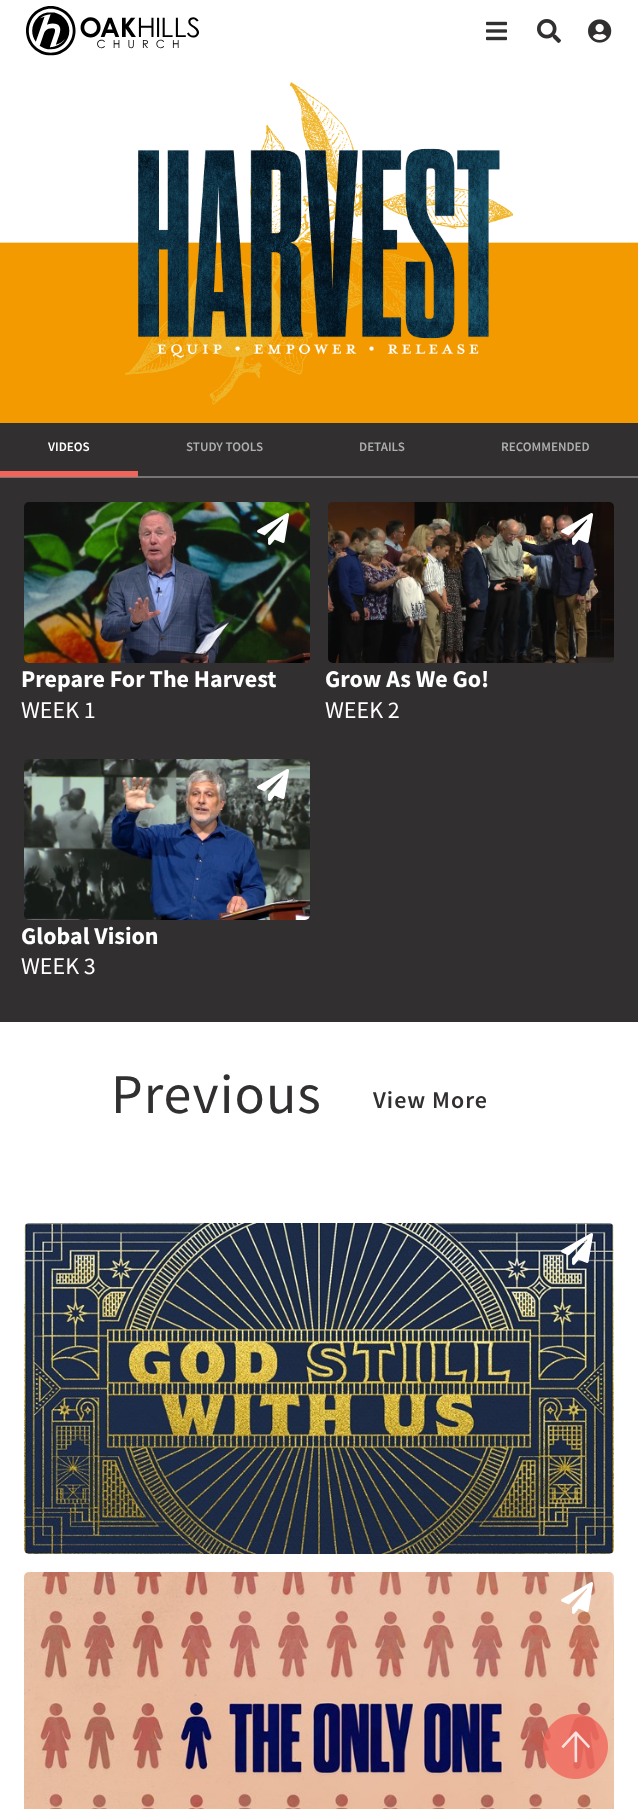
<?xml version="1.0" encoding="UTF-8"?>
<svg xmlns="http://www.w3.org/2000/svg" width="638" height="1809">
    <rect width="100%" height="100%" fill="#FFFFFF"/>
    <image x="26" y="6" width="173" height="50" href="img_01.png"/>
    <image x="486" y="21" width="21" height="20" href="img_02.png"/>
    <image x="537" y="19" width="24" height="24" href="img_03.png"/>
    <image x="588" y="19" width="24" height="24" href="img_04.png"/>
    <image x="0" y="405" width="638" height="18" href="img_05.png"/>
    <image x="0" y="82" width="638" height="323" href="img_06.png"/>
    <rect x="0" y="423" width="638" height="53" fill="#312F2F"/>
    <rect x="0" y="476" width="638" height="2" fill="#767676"/>
    <rect x="0" y="471" width="138" height="6" fill="#F0655B"/>
    <text x="48" y="451" font-family="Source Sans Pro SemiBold" font-size="13" font-weight="600" fill="#FFFFFF">VIDEOS</text>
    <text x="186" y="451" font-family="Source Sans Pro SemiBold" font-size="13" font-weight="600" fill="#AEAEAE">STUDY TOOLS</text>
    <text x="359" y="451" font-family="Source Sans Pro SemiBold" font-size="13" font-weight="600" fill="#AEAEAE">DETAILS</text>
    <text x="501" y="451" font-family="Source Sans Pro SemiBold" font-size="13" font-weight="600" fill="#AEAEAE">RECOMMENDED</text>
    <rect x="0" y="478" width="638" height="544" fill="#312F2F"/>
    <image x="24" y="502" width="286" height="161" href="img_08.png"/>
    <image x="257" y="513" width="33" height="32" href="img_07.png"/>
    <text x="21" y="687" font-family="Source Sans Pro" font-size="24" font-weight="700" fill="#FFFFFF">Prepare For The Harvest</text>
    <text x="21" y="718" font-family="Source Sans Pro" font-size="24" fill="#FFFFFF">WEEK 1</text>
    <image x="328" y="502" width="286" height="161" href="img_10.png"/>
    <image x="561" y="513" width="33" height="32" href="img_09.png"/>
    <text x="325" y="687" font-family="Source Sans Pro" font-size="24" font-weight="700" fill="#FFFFFF">Grow As We Go!</text>
    <text x="325" y="718" font-family="Source Sans Pro" font-size="24" fill="#FFFFFF">WEEK 2</text>
    <image x="24" y="759" width="286" height="161" href="img_12.png"/>
    <image x="257" y="769" width="32" height="32" href="img_11.png"/>
    <text x="21" y="944" font-family="Source Sans Pro" font-size="24" font-weight="700" fill="#FFFFFF">Global Vision</text>
    <text x="21" y="974" font-family="Source Sans Pro" font-size="24" fill="#FFFFFF">WEEK 3</text>
    <text x="111" y="1113" font-family="Source Sans Pro" font-size="56" letter-spacing="1" fill="#312F2F">Previous</text>
    <text x="373" y="1108" font-family="Source Sans Pro SemiBold" font-size="24" font-weight="600" letter-spacing="1" fill="#312F2F">View More</text>
    <image x="24" y="1223" width="590" height="331" href="img_13.png"/>
    <image x="561" y="1233" width="33" height="32" href="img_14.png"/>
    <image x="24" y="1572" width="590" height="237" href="img_15.png"/>
    <image x="561" y="1582" width="32" height="32" href="img_16.png"/>
    <image x="543" y="1714" width="65" height="65" href="img_17.png"/>
</svg>
